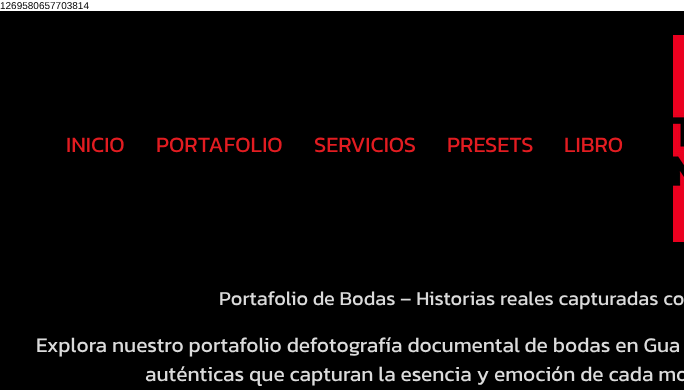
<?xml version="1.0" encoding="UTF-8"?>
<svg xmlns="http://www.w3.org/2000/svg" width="684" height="390">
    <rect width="100%" height="100%" fill="#FFFFFF"/>
    <text x="0" y="9" font-family="Liberation Sans" font-size="10" fill="#000000">1269580657703814</text>
    <rect x="0" y="11" width="684" height="379" fill="#000000"/>
    <text x="66" y="152" font-family="Kanit" font-size="22" fill="#E21C21">INICIO</text>
    <text x="156" y="152" font-family="Kanit" font-size="22" fill="#E21C21">PORTAFOLIO</text>
    <text x="314" y="152" font-family="Kanit" font-size="22" fill="#E21C21">SERVICIOS</text>
    <text x="447" y="152" font-family="Kanit" font-size="22" fill="#E21C21">PRESETS</text>
    <text x="564" y="152" font-family="Kanit" font-size="22" fill="#E21C21">LIBRO</text>
    <image x="673" y="35" width="11" height="207" href="img_01.png"/>
    <text x="219" y="305" font-family="Kanit" font-size="20" fill="#DBDBDB">Portafolio de Bodas – Historias reales capturadas co</text>
    <text x="36" y="352" font-family="Kanit" font-size="21" fill="#DBDBDB">Explora nuestro portafolio defotografía documental de bodas en Gua</text>
    <text x="145" y="381" font-family="Kanit" font-size="21" fill="#DBDBDB">auténticas que capturan la esencia y emoción de cada mo</text>
</svg>
